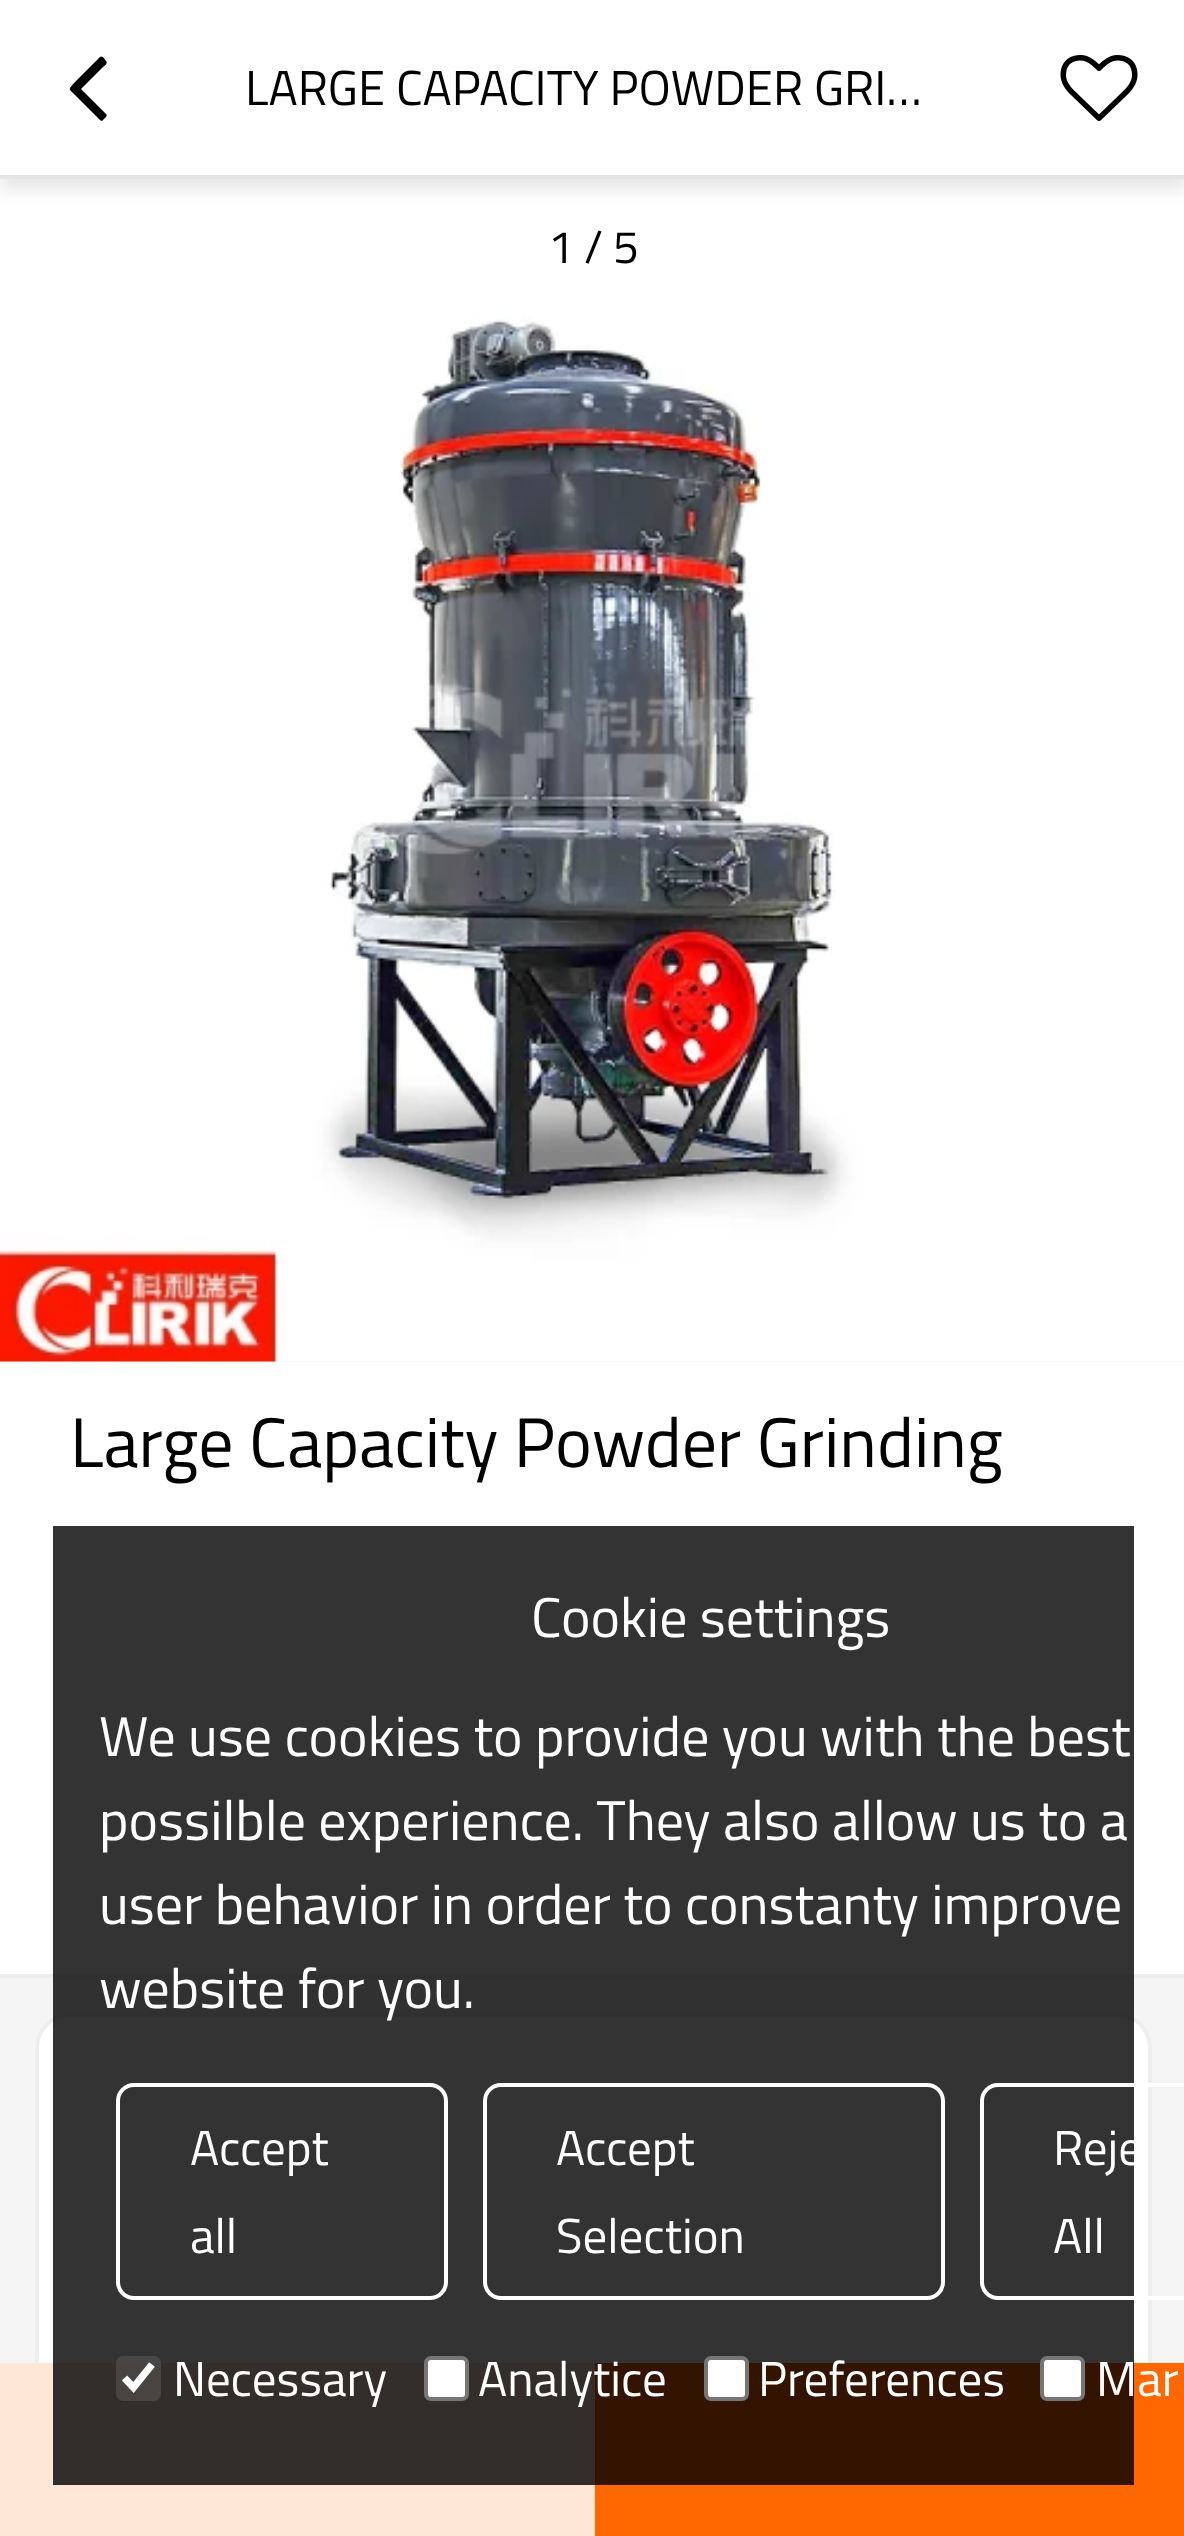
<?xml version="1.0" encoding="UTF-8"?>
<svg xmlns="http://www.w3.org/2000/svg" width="1184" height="2536">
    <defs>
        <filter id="blur1" x="-50%" y="-200%" width="200%" height="500%"><feGaussianBlur stdDeviation="9"/></filter>
    </defs>
    <rect width="100%" height="100%" fill="#F5F5F5"/>
    <image x="0" y="179" width="1184" height="1183" href="img_02.png"/>
    <rect x="0" y="11" width="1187" height="178" fill="#000000" fill-opacity="0.1" filter="url(#blur1)"/>
    <rect x="0" y="0" width="1184" height="175" fill="#FFFFFF"/>
    <rect x="0" y="175" width="1184" height="4" fill="#E5E5E5"/>
    <path d="M 106 61 C 109 63 103 67 102 68 L 81 89 L 106 114 C 108 116 105 118 104 119 C 103 120 102 122 100 120 L 75 95 C 68 88 68 90 75 82 L 100 57 C 102 55 105 59 106 61 Z" fill="#000000"/>
    <text x="245" y="105" font-family="Titillium Web" font-size="49" fill="#000000">LARGE CAPACITY POWDER GRI…</text>
    <image x="1060" y="55" width="78" height="66" href="img_01.png"/>
    <text x="548" y="263" font-family="Titillium Web" font-size="46" fill="#000000">1 / 5</text>
    <rect x="0" y="1362" width="1184" height="612" fill="#FFFFFF"/>
    <rect x="0" y="1974" width="1184" height="4" fill="#EEEEEE"/>
    <text x="70" y="1467" font-family="Titillium Web" font-size="70" fill="#000000">Large Capacity Powder Grinding</text>
    <rect x="37" y="2015" width="1113" height="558" rx="33" fill="#FFFFFF" stroke="#EEEEEE" stroke-width="4"/>
    <rect x="0" y="2363" width="595" height="173" fill="#FFE7D6"/>
    <rect x="595" y="2363" width="589" height="173" fill="#FF6700"/>
    <rect x="53" y="1526" width="1081" height="959" fill="#000000" fill-opacity="0.8"/>
    <text x="531" y="1637" font-family="Titillium Web" font-size="56" fill="#FFFFFF">Cookie settings</text>
    <text font-family="Titillium Web" font-size="56" fill="#FFFFFF">
        <tspan x="99" y="1756">We use cookies to provide you with the best</tspan>
        <tspan x="99" y="1840">possilble experience. They also allow us to a</tspan>
        <tspan x="99" y="1924">user behavior in order to constanty improve</tspan>
        <tspan x="99" y="2008">website for you.</tspan>
    </text>
    <rect x="118" y="2085" width="328" height="213" rx="16" fill="none" stroke="#FFFFFF" stroke-width="4"/>
    <text font-family="Titillium Web" font-size="49" fill="#FFFFFF">
        <tspan x="190" y="2165">Accept</tspan>
        <tspan x="190" y="2253">all</tspan>
    </text>
    <rect x="485" y="2085" width="458" height="213" rx="16" fill="none" stroke="#FFFFFF" stroke-width="4"/>
    <text font-family="Titillium Web" font-size="49" fill="#FFFFFF">
        <tspan x="556" y="2165">Accept</tspan>
        <tspan x="556" y="2253">Selection</tspan>
    </text>
    <rect x="982" y="2085" width="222" height="213" rx="16" fill="none" stroke="#FFFFFF" stroke-width="4"/>
    <text font-family="Titillium Web" font-size="49" fill="#FFFFFF">
        <tspan x="1053" y="2165">Reje</tspan>
        <tspan x="1053" y="2253">All</tspan>
    </text>
    <rect x="116" y="2356" width="45" height="45" rx="7" fill="#767676" fill-opacity="0.3"/>
    <path d="M 124.5 2378 L 133.5 2387.5 L 152 2364.5" fill="none" stroke="#FFFFFF" stroke-width="7.3"/>
    <text x="173" y="2396" font-family="Titillium Web" font-size="49" fill="#FFFFFF">Necessary</text>
    <rect x="426" y="2358" width="41" height="41" rx="5" fill="#FFFFFF" stroke="#767676" stroke-width="4"/>
    <text x="478" y="2396" font-family="Titillium Web" font-size="49" fill="#FFFFFF">Analytice</text>
    <rect x="706" y="2358" width="41" height="41" rx="5" fill="#FFFFFF" stroke="#767676" stroke-width="4"/>
    <text x="758" y="2396" font-family="Titillium Web" font-size="49" fill="#FFFFFF">Preferences</text>
    <rect x="1042" y="2358" width="41" height="41" rx="5" fill="#FFFFFF" stroke="#767676" stroke-width="4"/>
    <text x="1096" y="2396" font-family="Titillium Web" font-size="49" fill="#FFFFFF">Mar</text>
</svg>
